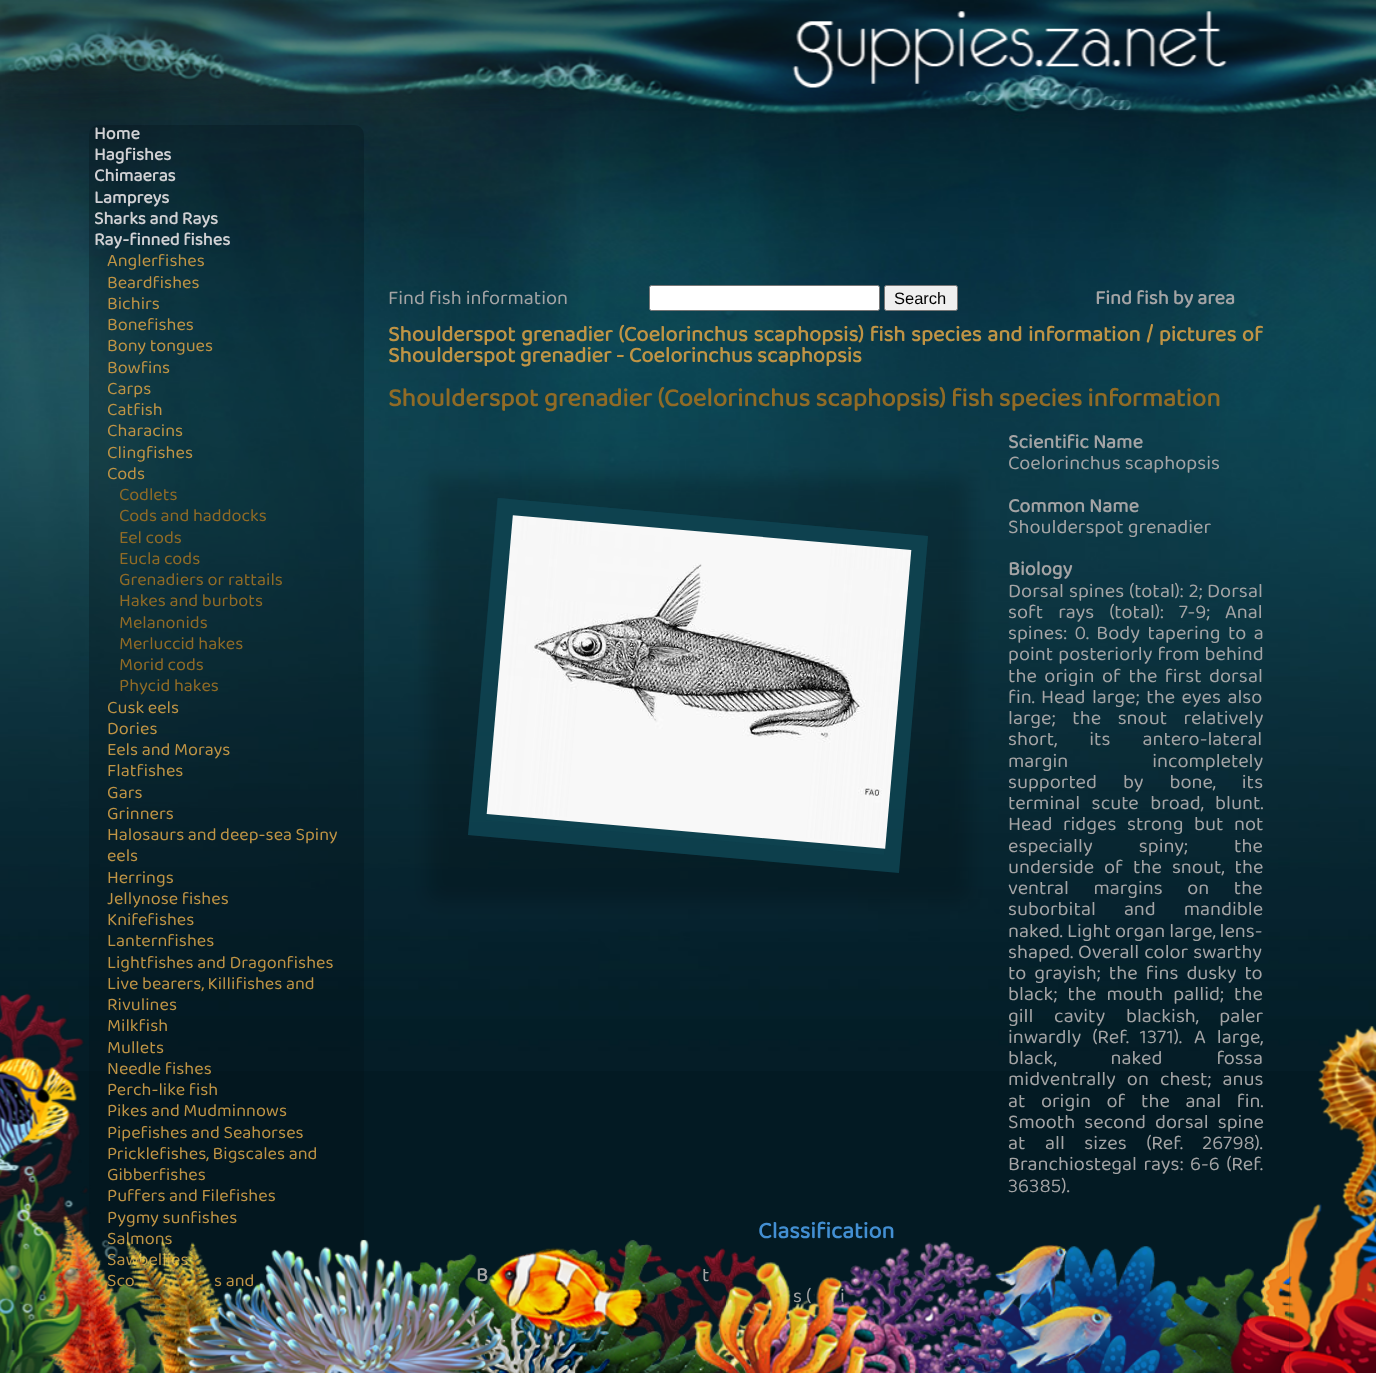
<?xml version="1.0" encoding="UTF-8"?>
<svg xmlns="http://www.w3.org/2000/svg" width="1376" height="1373">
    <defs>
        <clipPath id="clip1"><path d="M 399 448 H 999 V 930 H 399 Z M 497.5 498 L 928 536 L 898.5 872.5 L 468 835 Z" clip-rule="evenodd"/></clipPath>
        <filter id="blur1" x="-50%" y="-200%" width="200%" height="500%"><feGaussianBlur stdDeviation="9.5"/></filter>
    </defs>
    <rect width="100%" height="100%" fill="#031A23"/>
    <image x="0" y="0" width="1376" height="1071" href="img_01.png"/>
    <image x="0" y="993" width="91" height="380" href="img_02.png"/>
    <image x="1288" y="1025" width="88" height="348" href="img_03.png"/>
    <image x="5" y="9" width="1371" height="102" href="img_04.png"/>
    <rect x="89" y="125" width="275" height="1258" rx="10" fill="#031016" fill-opacity="0.3"/>
    <text font-family="'Baloo Bhaina 2'" font-size="18" font-weight="700" fill="#D1D1D4">
        <tspan x="94" y="139">Home</tspan>
        <tspan x="94" y="160">Hagfishes</tspan>
        <tspan x="94" y="181">Chimaeras</tspan>
        <tspan x="94" y="203">Lampreys</tspan>
        <tspan x="94" y="224">Sharks and Rays</tspan>
        <tspan x="94" y="245">Ray-finned fishes</tspan>
    </text>
    <text font-family="'Baloo Bhaina 2'" font-size="18" fill="#BF9445">
        <tspan x="107" y="266">Anglerfishes</tspan>
        <tspan x="107" y="288">Beardfishes</tspan>
        <tspan x="107" y="309">Bichirs</tspan>
        <tspan x="107" y="330">Bonefishes</tspan>
        <tspan x="107" y="351">Bony tongues</tspan>
        <tspan x="107" y="373">Bowfins</tspan>
        <tspan x="107" y="394">Carps</tspan>
        <tspan x="107" y="415">Catfish</tspan>
        <tspan x="107" y="436">Characins</tspan>
        <tspan x="107" y="458">Clingfishes</tspan>
        <tspan x="107" y="479">Cods</tspan>
    </text>
    <text font-family="'Baloo Bhaina 2'" font-size="18" fill="#906B26">
        <tspan x="119" y="500">Codlets</tspan>
        <tspan x="119" y="521">Cods and haddocks</tspan>
        <tspan x="119" y="543">Eel cods</tspan>
        <tspan x="119" y="564">Eucla cods</tspan>
        <tspan x="119" y="585">Grenadiers or rattails</tspan>
        <tspan x="119" y="606">Hakes and burbots</tspan>
        <tspan x="119" y="628">Melanonids</tspan>
        <tspan x="119" y="649">Merluccid hakes</tspan>
        <tspan x="119" y="670">Morid cods</tspan>
        <tspan x="119" y="691">Phycid hakes</tspan>
    </text>
    <text font-family="'Baloo Bhaina 2'" font-size="18" fill="#BF9445">
        <tspan x="107" y="713">Cusk eels</tspan>
        <tspan x="107" y="734">Dories</tspan>
        <tspan x="107" y="755">Eels and Morays</tspan>
        <tspan x="107" y="776">Flatfishes</tspan>
        <tspan x="107" y="798">Gars</tspan>
        <tspan x="107" y="819">Grinners</tspan>
        <tspan x="107" y="840">Halosaurs and deep-sea Spiny</tspan>
        <tspan x="107" y="861">eels</tspan>
        <tspan x="107" y="883">Herrings</tspan>
        <tspan x="107" y="904">Jellynose fishes</tspan>
        <tspan x="107" y="925">Knifefishes</tspan>
        <tspan x="107" y="946">Lanternfishes</tspan>
        <tspan x="107" y="968">Lightfishes and Dragonfishes</tspan>
        <tspan x="107" y="989">Live bearers, Killifishes and</tspan>
        <tspan x="107" y="1010">Rivulines</tspan>
        <tspan x="107" y="1031">Milkfish</tspan>
        <tspan x="107" y="1053">Mullets</tspan>
        <tspan x="107" y="1074">Needle fishes</tspan>
        <tspan x="107" y="1095">Perch-like fish</tspan>
        <tspan x="107" y="1116">Pikes and Mudminnows</tspan>
        <tspan x="107" y="1138">Pipefishes and Seahorses</tspan>
        <tspan x="107" y="1159">Pricklefishes, Bigscales and</tspan>
        <tspan x="107" y="1180">Gibberfishes</tspan>
        <tspan x="107" y="1201">Puffers and Filefishes</tspan>
        <tspan x="107" y="1223">Pygmy sunfishes</tspan>
        <tspan x="107" y="1244">Salmons</tspan>
        <tspan x="107" y="1265">Sawbellies</tspan>
        <tspan x="107" y="1286">Sco</tspan>
    </text>
    <text x="214" y="1286" font-family="'Baloo Bhaina 2'" font-size="18" fill="#BF9445">s and</text>
    <text x="388" y="304" font-family="'Baloo Bhaina 2'" font-size="20" fill="#A4A4A5">Find fish information</text>
    <rect x="649.5" y="285.5" width="230" height="25" rx="2" fill="#FFFFFF" stroke="#767676"/>
    <rect x="884.5" y="285.5" width="73" height="25" rx="2" fill="#EFEFEF" stroke="#767676"/>
    <text x="894" y="304" font-family="Liberation Sans" font-size="16.5" fill="#000000">Search</text>
    <text x="1095" y="304" font-family="'Baloo Bhaina 2'" font-size="20" font-weight="700" fill="#A4A4A5">Find fish by area</text>
    <text font-family="'Baloo Bhaina 2'" font-size="22" font-weight="700" fill="#BF9445">
        <tspan x="388" y="341" word-spacing="1.25">Shoulderspot grenadier (Coelorinchus scaphopsis) fish species and information / pictures of</tspan>
        <tspan x="388" y="362">Shoulderspot grenadier - Coelorinchus scaphopsis</tspan>
    </text>
    <text x="388" y="406" font-family="'Baloo Bhaina 2'" font-size="26" font-weight="700" fill="#906B26">Shoulderspot grenadier (Coelorinchus scaphopsis) fish species information</text>
    <g clip-path="url(#clip1)">
        <rect x="429" y="478" width="540" height="422" fill="#000000" fill-opacity="0.2" filter="url(#blur1)"/>
    </g>
    <path d="M 498 498 L 928 536 L 899 873 L 468 835 Z" fill="#0E4250" fill-opacity="0.9"/>
    <path d="M 512 516 L 911 550 L 884 855 L 486 820 Z" fill="#0E4250" fill-opacity="0.9"/>
    <image x="486" y="515" width="426" height="334" href="img_05.png"/>
    <text x="1008" y="448" font-family="'Baloo Bhaina 2'" font-size="20" font-weight="700" fill="#A4A4A5">Scientific Name</text>
    <text x="1008" y="469" font-family="'Baloo Bhaina 2'" font-size="20" fill="#A4A4A5">Coelorinchus scaphopsis</text>
    <text x="1008" y="512" font-family="'Baloo Bhaina 2'" font-size="20" font-weight="700" fill="#A4A4A5">Common Name</text>
    <text x="1008" y="533" font-family="'Baloo Bhaina 2'" font-size="20" fill="#A4A4A5">Shoulderspot grenadier</text>
    <text x="1008" y="575" font-family="'Baloo Bhaina 2'" font-size="20" font-weight="700" fill="#A4A4A5">Biology</text>
    <text x="1008" y="597" font-family="'Baloo Bhaina 2'" font-size="20" fill="#A4A4A5">Dorsal</text>
    <text x="1069" y="597" word-spacing="1" font-family="'Baloo Bhaina 2'" font-size="20" fill="#A4A4A5">spines (total): 2;</text>
    <text x="1207" y="597" font-family="'Baloo Bhaina 2'" font-size="20" fill="#A4A4A5">Dorsal</text>
    <text x="1008" y="618" word-spacing="11" font-family="'Baloo Bhaina 2'" font-size="20" fill="#A4A4A5">soft rays (total): 7-9;</text>
    <text x="1225" y="618" font-family="'Baloo Bhaina 2'" font-size="20" fill="#A4A4A5">Anal</text>
    <text font-family="'Baloo Bhaina 2'" font-size="20" fill="#A4A4A5">
        <tspan x="1008" y="639" word-spacing="3.5">spines: 0. Body tapering to a</tspan>
        <tspan x="1008" y="660" word-spacing="1">point posteriorly from behind</tspan>
        <tspan x="1008" y="682" word-spacing="3.5">the origin of the first dorsal</tspan>
        <tspan x="1008" y="703">fin.</tspan>
    </text>
    <text x="1041" y="703" word-spacing="2.5" font-family="'Baloo Bhaina 2'" font-size="20" fill="#A4A4A5">Head large; the eyes also</text>
    <text font-family="'Baloo Bhaina 2'" font-size="20" fill="#A4A4A5">
        <tspan x="1008" y="724" word-spacing="12.5">large; the snout relatively</tspan>
        <tspan x="1008" y="745" word-spacing="28">short, its antero-lateral</tspan>
        <tspan x="1008" y="767" word-spacing="80">margin incompletely</tspan>
        <tspan x="1008" y="788" word-spacing="22">supported by bone, its</tspan>
        <tspan x="1008" y="809" word-spacing="7.5">terminal scute broad, blunt.</tspan>
        <tspan x="1008" y="830" word-spacing="6.5">Head ridges strong but not</tspan>
        <tspan x="1008" y="852" word-spacing="42">especially spiny; the</tspan>
        <tspan x="1008" y="873" word-spacing="6">underside of the snout, the</tspan>
        <tspan x="1008" y="894" word-spacing="20.5">ventral margins on the</tspan>
        <tspan x="1008" y="915" word-spacing="24">suborbital and mandible</tspan>
        <tspan x="1008" y="937">naked.</tspan>
    </text>
    <text x="1067" y="937" font-family="'Baloo Bhaina 2'" font-size="20" fill="#A4A4A5">Light organ large, lens-</text>
    <text x="1008" y="958" font-family="'Baloo Bhaina 2'" font-size="20" fill="#A4A4A5">shaped.</text>
    <text x="1078" y="958" word-spacing="1" font-family="'Baloo Bhaina 2'" font-size="20" fill="#A4A4A5">Overall color swarthy</text>
    <text font-family="'Baloo Bhaina 2'" font-size="20" fill="#A4A4A5">
        <tspan x="1008" y="979" word-spacing="4">to grayish; the fins dusky to</tspan>
        <tspan x="1008" y="1000" word-spacing="6">black; the mouth pallid; the</tspan>
        <tspan x="1008" y="1022" word-spacing="16.5">gill cavity blackish, paler</tspan>
        <tspan x="1008" y="1043" word-spacing="7">inwardly (Ref. 1371).</tspan>
    </text>
    <text x="1194" y="1043" word-spacing="7" font-family="'Baloo Bhaina 2'" font-size="20" fill="#A4A4A5">A large,</text>
    <text font-family="'Baloo Bhaina 2'" font-size="20" fill="#A4A4A5">
        <tspan x="1008" y="1064" word-spacing="50">black, naked fossa</tspan>
        <tspan x="1008" y="1085" word-spacing="7">midventrally on chest; anus</tspan>
        <tspan x="1008" y="1107" word-spacing="11.5">at origin of the anal fin.</tspan>
        <tspan x="1008" y="1128" word-spacing="5">Smooth second dorsal spine</tspan>
        <tspan x="1008" y="1149" word-spacing="15.5">at all sizes (Ref. 26798).</tspan>
        <tspan x="1008" y="1170" word-spacing="2.5">Branchiostegal rays:</tspan>
    </text>
    <text x="1190" y="1170" word-spacing="2.5" font-family="'Baloo Bhaina 2'" font-size="20" fill="#A4A4A5">6-6 (Ref.</text>
    <text x="1008" y="1192" font-family="'Baloo Bhaina 2'" font-size="20" fill="#A4A4A5">36385).</text>
    <text x="758" y="1238" font-family="'Baloo Bhaina 2'" font-size="23.5" font-weight="700" fill="#438FD2">Classification</text>
    <text x="476" y="1281" font-family="'Baloo Bhaina 2'" font-size="20" font-weight="700" fill="#A4A4A5">B</text>
    <text x="702" y="1281" font-family="'Baloo Bhaina 2'" font-size="20" fill="#A4A4A5">t</text>
    <text x="793" y="1302" font-family="'Baloo Bhaina 2'" font-size="20" fill="#A4A4A5">s (</text>
    <text x="840" y="1302" font-family="'Baloo Bhaina 2'" font-size="20" fill="#A4A4A5">i</text>
    <image x="88" y="1238" width="1201" height="135" href="img_06.png"/>
</svg>
